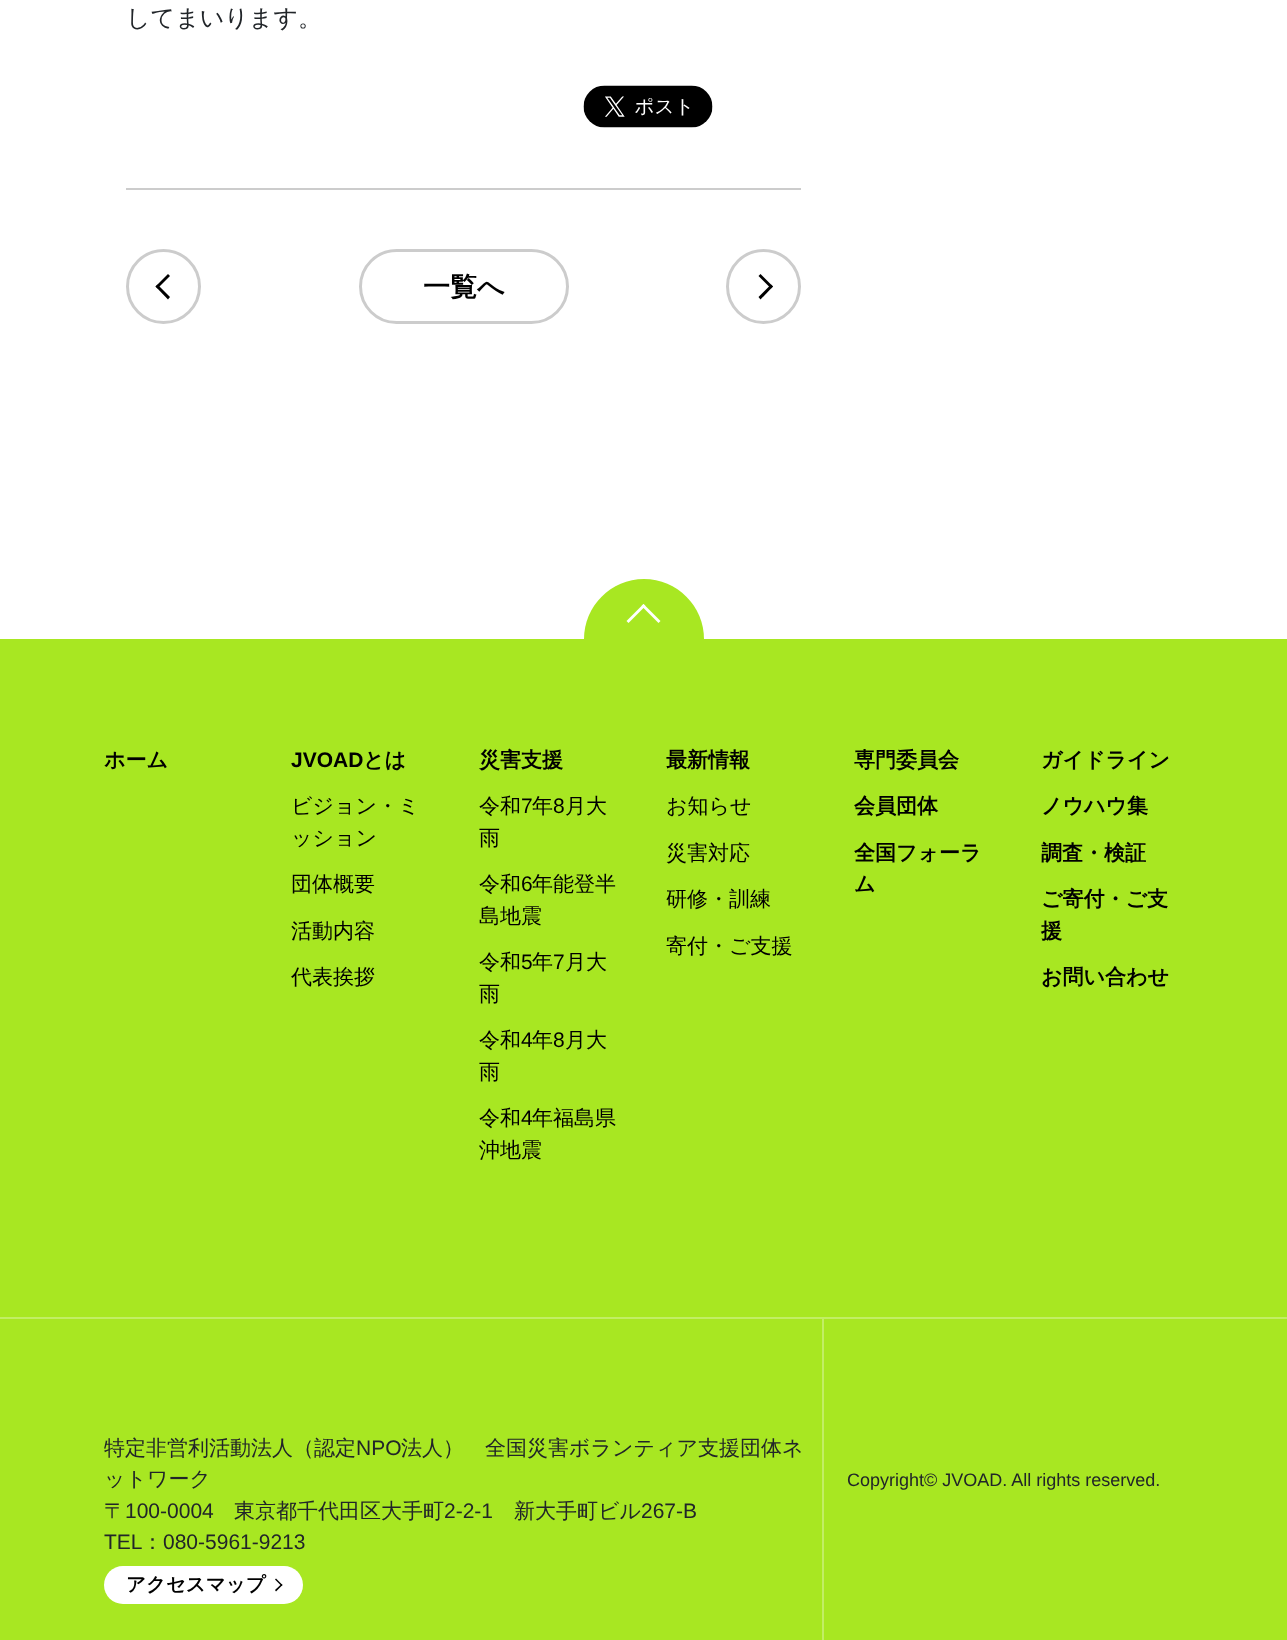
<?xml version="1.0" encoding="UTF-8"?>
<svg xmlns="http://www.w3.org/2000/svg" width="1287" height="1640">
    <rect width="100%" height="100%" fill="#FFFFFF"/>
    <rect x="126" y="188" width="675" height="2" fill="#CCCCCC"/>
    <text x="126" y="26" font-family="WenQuanYi Zen Hei" font-size="24" font-weight="500" fill="#212529">してまいります。</text>
    <image x="583" y="85" width="130" height="43" href="img_01.png"/>
    <circle cx="163.5" cy="286.5" r="36" fill="none" stroke="#CCCCCC" stroke-width="3"/>
    <path d="M 168 299.5 L 155.5 286.5 L 157.5 284.5 L 170 297 Z" fill="#000000"/>
    <path d="M 157.5 288.5 L 155.5 286.5 L 168 274 L 170 276 Z" fill="#000000"/>
    <rect x="360.5" y="250.5" width="207" height="72" rx="36" fill="none" stroke="#CCCCCC" stroke-width="3"/>
    <text x="423" y="296" font-family="WenQuanYi Zen Hei" font-size="27" font-weight="700" fill="#000000">一覧へ</text>
    <circle cx="763.5" cy="286.5" r="36" fill="none" stroke="#CCCCCC" stroke-width="3"/>
    <path d="M 760.5 274 L 773 286.5 L 771 288.5 L 758.5 276 Z" fill="#000000"/>
    <path d="M 771 284.5 L 773 286.5 L 760.5 299.5 L 758.5 297 Z" fill="#000000"/>
    <rect x="0" y="639" width="1287" height="1001" fill="#A8E722"/>
    <path d="M 644 579 C 677 579 704 606 704 639 H 584 C 584 606 611 579 644 579 Z" fill="#A8E722"/>
    <path d="M 626.5 621 L 643.5 604 L 645.5 606 L 628.5 623 Z" fill="#FFFFFF"/>
    <path d="M 641.5 606 L 643.5 604 L 660.5 621 L 658.5 623 Z" fill="#FFFFFF"/>
    <text x="104" y="767" font-family="WenQuanYi Zen Hei" font-size="21" font-weight="700" fill="#000000">ホーム</text>
    <text x="291" y="767" font-family="Liberation Sans" font-size="21" font-weight="700" fill="#000000">JVOAD</text>
    <text x="363" y="767" font-family="WenQuanYi Zen Hei" font-size="21" font-weight="700" fill="#000000">とは</text>
    <text font-family="WenQuanYi Zen Hei" font-size="21" font-weight="500" fill="#000000">
        <tspan x="291" y="813">ビジョン・ミ</tspan>
        <tspan x="291" y="845">ッション</tspan>
    </text>
    <text x="291" y="891" font-family="WenQuanYi Zen Hei" font-size="21" font-weight="500" fill="#000000">団体概要</text>
    <text x="291" y="938" font-family="WenQuanYi Zen Hei" font-size="21" font-weight="500" fill="#000000">活動内容</text>
    <text x="291" y="984" font-family="WenQuanYi Zen Hei" font-size="21" font-weight="500" fill="#000000">代表挨拶</text>
    <text x="479" y="767" font-family="WenQuanYi Zen Hei" font-size="21" font-weight="700" fill="#000000">災害支援</text>
    <text x="479" y="813" font-family="WenQuanYi Zen Hei" font-size="21" font-weight="500" fill="#000000">令和</text>
    <text x="521" y="813" font-family="Liberation Sans" font-size="21" fill="#000000">7</text>
    <text x="532" y="813" font-family="WenQuanYi Zen Hei" font-size="21" font-weight="500" fill="#000000">年</text>
    <text x="553" y="813" font-family="Liberation Sans" font-size="21" fill="#000000">8</text>
    <text x="565" y="813" font-family="WenQuanYi Zen Hei" font-size="21" font-weight="500" fill="#000000">月大</text>
    <text x="479" y="845" font-family="WenQuanYi Zen Hei" font-size="21" font-weight="500" fill="#000000">雨</text>
    <text x="479" y="891" font-family="WenQuanYi Zen Hei" font-size="21" font-weight="500" fill="#000000">令和</text>
    <text x="521" y="891" font-family="Liberation Sans" font-size="21" fill="#000000">6</text>
    <text x="532" y="891" font-family="WenQuanYi Zen Hei" font-size="21" font-weight="500" fill="#000000">年能登半</text>
    <text x="479" y="923" font-family="WenQuanYi Zen Hei" font-size="21" font-weight="500" fill="#000000">島地震</text>
    <text x="479" y="969" font-family="WenQuanYi Zen Hei" font-size="21" font-weight="500" fill="#000000">令和</text>
    <text x="521" y="969" font-family="Liberation Sans" font-size="21" fill="#000000">5</text>
    <text x="532" y="969" font-family="WenQuanYi Zen Hei" font-size="21" font-weight="500" fill="#000000">年</text>
    <text x="553" y="969" font-family="Liberation Sans" font-size="21" fill="#000000">7</text>
    <text x="565" y="969" font-family="WenQuanYi Zen Hei" font-size="21" font-weight="500" fill="#000000">月大</text>
    <text x="479" y="1001" font-family="WenQuanYi Zen Hei" font-size="21" font-weight="500" fill="#000000">雨</text>
    <text x="479" y="1047" font-family="WenQuanYi Zen Hei" font-size="21" font-weight="500" fill="#000000">令和</text>
    <text x="521" y="1047" font-family="Liberation Sans" font-size="21" fill="#000000">4</text>
    <text x="532" y="1047" font-family="WenQuanYi Zen Hei" font-size="21" font-weight="500" fill="#000000">年</text>
    <text x="553" y="1047" font-family="Liberation Sans" font-size="21" fill="#000000">8</text>
    <text x="565" y="1047" font-family="WenQuanYi Zen Hei" font-size="21" font-weight="500" fill="#000000">月大</text>
    <text x="479" y="1079" font-family="WenQuanYi Zen Hei" font-size="21" font-weight="500" fill="#000000">雨</text>
    <text x="479" y="1125" font-family="WenQuanYi Zen Hei" font-size="21" font-weight="500" fill="#000000">令和</text>
    <text x="521" y="1125" font-family="Liberation Sans" font-size="21" fill="#000000">4</text>
    <text x="532" y="1125" font-family="WenQuanYi Zen Hei" font-size="21" font-weight="500" fill="#000000">年福島県</text>
    <text x="479" y="1157" font-family="WenQuanYi Zen Hei" font-size="21" font-weight="500" fill="#000000">沖地震</text>
    <text x="666" y="767" font-family="WenQuanYi Zen Hei" font-size="21" font-weight="700" fill="#000000">最新情報</text>
    <text x="666" y="813" font-family="WenQuanYi Zen Hei" font-size="21" font-weight="500" fill="#000000">お知らせ</text>
    <text x="666" y="860" font-family="WenQuanYi Zen Hei" font-size="21" font-weight="500" fill="#000000">災害対応</text>
    <text x="666" y="906" font-family="WenQuanYi Zen Hei" font-size="21" font-weight="500" fill="#000000">研修・訓練</text>
    <text x="666" y="953" font-family="WenQuanYi Zen Hei" font-size="21" font-weight="500" fill="#000000">寄付・ご支援</text>
    <text x="854" y="767" font-family="WenQuanYi Zen Hei" font-size="21" font-weight="700" fill="#000000">専門委員会</text>
    <text x="854" y="813" font-family="WenQuanYi Zen Hei" font-size="21" font-weight="700" fill="#000000">会員団体</text>
    <text font-family="WenQuanYi Zen Hei" font-size="21" font-weight="700" fill="#000000">
        <tspan x="854" y="860">全国フォーラ</tspan>
        <tspan x="854" y="891">ム</tspan>
    </text>
    <text x="1041" y="767" font-family="WenQuanYi Zen Hei" font-size="21" font-weight="700" fill="#000000">ガイドライン</text>
    <text x="1041" y="813" font-family="WenQuanYi Zen Hei" font-size="21" font-weight="700" fill="#000000">ノウハウ集</text>
    <text x="1041" y="860" font-family="WenQuanYi Zen Hei" font-size="21" font-weight="700" fill="#000000">調査・検証</text>
    <text font-family="WenQuanYi Zen Hei" font-size="21" font-weight="700" fill="#000000">
        <tspan x="1041" y="906">ご寄付・ご支</tspan>
        <tspan x="1041" y="938">援</tspan>
    </text>
    <text x="1041" y="984" font-family="WenQuanYi Zen Hei" font-size="21" font-weight="700" fill="#000000">お問い合わせ</text>
    <rect x="0" y="1317" width="1287" height="2" fill="#C2EE65"/>
    <rect x="822" y="1319" width="2" height="321" fill="#C2EE65"/>
    <text x="104" y="1455" font-family="WenQuanYi Zen Hei" font-size="21" font-weight="500" fill="#212529">特定非営利活動法人（認定</text>
    <text x="356" y="1455" font-family="Liberation Sans" font-size="21" fill="#212529">NPO</text>
    <text x="401" y="1455" font-family="WenQuanYi Zen Hei" font-size="21" font-weight="500" fill="#212529">法人）　全国災害ボランティア支援団体ネ</text>
    <text font-family="WenQuanYi Zen Hei" font-size="21" font-weight="500" fill="#212529">
        <tspan x="104" y="1486">ットワーク</tspan>
        <tspan x="104" y="1518">〒</tspan>
    </text>
    <text x="125" y="1518" font-family="Liberation Sans" font-size="21" fill="#212529">100-0004</text>
    <text x="234" y="1518" font-family="WenQuanYi Zen Hei" font-size="21" font-weight="500" fill="#212529">東京都千代田区大手町</text>
    <text x="444" y="1518" font-family="Liberation Sans" font-size="21" fill="#212529">2-2-1</text>
    <text x="514" y="1518" font-family="WenQuanYi Zen Hei" font-size="21" font-weight="500" fill="#212529">新大手町ビル</text>
    <text x="641" y="1518" font-family="Liberation Sans" font-size="21" fill="#212529">267-B</text>
    <text x="104" y="1549" font-family="Liberation Sans" font-size="21" fill="#212529">TEL</text>
    <text x="142" y="1549" font-family="WenQuanYi Zen Hei" font-size="21" font-weight="500" fill="#212529">：</text>
    <text x="163" y="1549" font-family="Liberation Sans" font-size="21" fill="#212529">080-5961-9213</text>
    <rect x="104" y="1566" width="199" height="38" rx="19" fill="#FFFFFF"/>
    <text x="126" y="1591" font-family="WenQuanYi Zen Hei" font-size="19.5" font-weight="700" fill="#000000">アクセスマップ</text>
    <path d="M 276 1578.5 L 282.5 1585 L 281.5 1586 L 275 1579.5 Z" fill="#000000"/>
    <path d="M 281.5 1584 L 282.5 1585 L 276 1591.5 L 275 1590 Z" fill="#000000"/>
    <text x="847" y="1486" font-family="Liberation Sans" font-size="18" fill="#212529">Copyright© JVOAD. All rights reserved.</text>
</svg>
